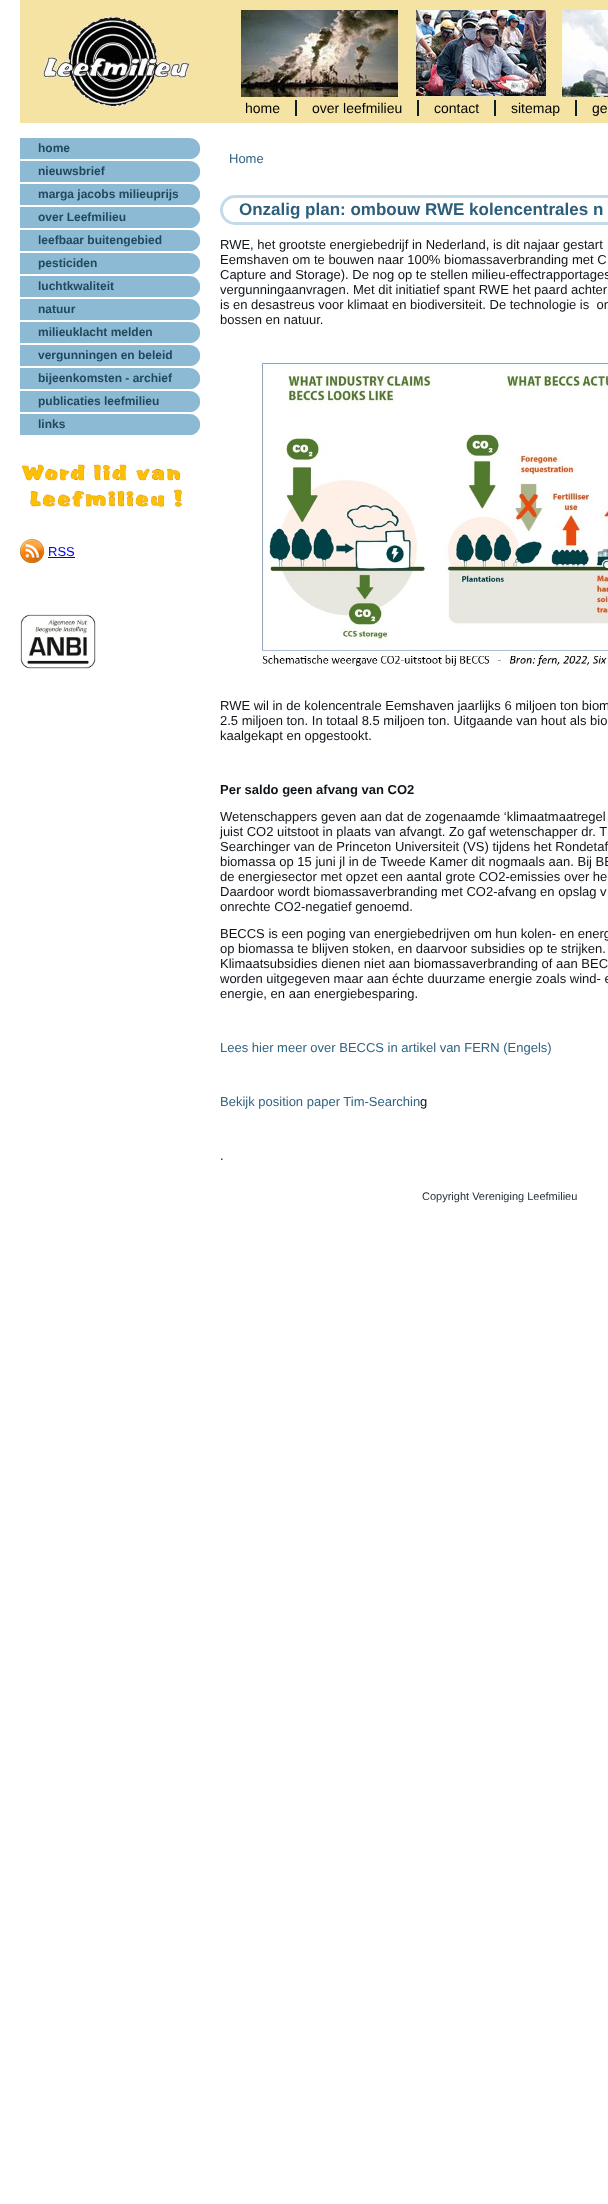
<?xml version="1.0" encoding="UTF-8"?>
<svg xmlns="http://www.w3.org/2000/svg" width="608" height="2204">
    <rect width="100%" height="100%" fill="#FFFFFF"/>
    <image x="20" y="0" width="588" height="123" href="img_01.png"/>
    <text x="245" y="113" font-family="Liberation Sans" font-size="14" fill="#000000">home</text>
    <rect x="295" y="100" width="2" height="16" fill="#0E1D25"/>
    <text x="312" y="113" font-family="Liberation Sans" font-size="14" fill="#000000">over leefmilieu</text>
    <rect x="417" y="100" width="2" height="16" fill="#0E1D25"/>
    <text x="434" y="113" font-family="Liberation Sans" font-size="14" fill="#000000">contact</text>
    <rect x="494" y="100" width="2" height="16" fill="#0E1D25"/>
    <text x="511" y="113" font-family="Liberation Sans" font-size="14" fill="#000000">sitemap</text>
    <rect x="575" y="100" width="2" height="16" fill="#0E1D25"/>
    <text x="592" y="113" font-family="Liberation Sans" font-size="14" fill="#000000">ge</text>
    <image x="241" y="10" width="367" height="88" href="img_02.png"/>
    <rect x="20" y="138" width="170" height="21" fill="#8CBAD4"/>
    <image x="190" y="138" width="10" height="21" href="img_03.png"/>
    <text x="38" y="152" font-family="Liberation Sans" font-size="12" font-weight="700" fill="#22485D">home</text>
    <rect x="20" y="161" width="170" height="21" fill="#8CBAD4"/>
    <image x="190" y="161" width="10" height="21" href="img_03.png"/>
    <text x="38" y="175" font-family="Liberation Sans" font-size="12" font-weight="700" fill="#22485D">nieuwsbrief</text>
    <rect x="20" y="184" width="170" height="21" fill="#8CBAD4"/>
    <image x="190" y="184" width="10" height="21" href="img_03.png"/>
    <text x="38" y="198" font-family="Liberation Sans" font-size="12" font-weight="700" fill="#22485D">marga jacobs milieuprijs</text>
    <rect x="20" y="207" width="170" height="21" fill="#8CBAD4"/>
    <image x="190" y="207" width="10" height="21" href="img_03.png"/>
    <text x="38" y="221" font-family="Liberation Sans" font-size="12" font-weight="700" fill="#22485D">over Leefmilieu</text>
    <rect x="20" y="230" width="170" height="21" fill="#8CBAD4"/>
    <image x="190" y="230" width="10" height="21" href="img_03.png"/>
    <text x="38" y="244" font-family="Liberation Sans" font-size="12" font-weight="700" fill="#22485D">leefbaar buitengebied</text>
    <rect x="20" y="253" width="170" height="21" fill="#8CBAD4"/>
    <image x="190" y="253" width="10" height="21" href="img_03.png"/>
    <text x="38" y="267" font-family="Liberation Sans" font-size="12" font-weight="700" fill="#22485D">pesticiden</text>
    <rect x="20" y="276" width="170" height="21" fill="#8CBAD4"/>
    <image x="190" y="276" width="10" height="21" href="img_03.png"/>
    <text x="38" y="290" font-family="Liberation Sans" font-size="12" font-weight="700" fill="#22485D">luchtkwaliteit</text>
    <rect x="20" y="299" width="170" height="21" fill="#8CBAD4"/>
    <image x="190" y="299" width="10" height="21" href="img_03.png"/>
    <text x="38" y="313" font-family="Liberation Sans" font-size="12" font-weight="700" fill="#22485D">natuur</text>
    <rect x="20" y="322" width="170" height="21" fill="#8CBAD4"/>
    <image x="190" y="322" width="10" height="21" href="img_03.png"/>
    <text x="38" y="336" font-family="Liberation Sans" font-size="12" font-weight="700" fill="#22485D">milieuklacht melden</text>
    <rect x="20" y="345" width="170" height="21" fill="#8CBAD4"/>
    <image x="190" y="345" width="10" height="21" href="img_03.png"/>
    <text x="38" y="359" font-family="Liberation Sans" font-size="12" font-weight="700" fill="#22485D">vergunningen en beleid</text>
    <rect x="20" y="368" width="170" height="21" fill="#8CBAD4"/>
    <image x="190" y="368" width="10" height="21" href="img_03.png"/>
    <text x="38" y="382" font-family="Liberation Sans" font-size="12" font-weight="700" fill="#22485D">bijeenkomsten - archief</text>
    <rect x="20" y="391" width="170" height="21" fill="#8CBAD4"/>
    <image x="190" y="391" width="10" height="21" href="img_03.png"/>
    <text x="38" y="405" font-family="Liberation Sans" font-size="12" font-weight="700" fill="#22485D">publicaties leefmilieu</text>
    <rect x="20" y="414" width="170" height="21" fill="#8CBAD4"/>
    <image x="190" y="414" width="10" height="21" href="img_03.png"/>
    <text x="38" y="428" font-family="Liberation Sans" font-size="12" font-weight="700" fill="#22485D">links</text>
    <image x="21" y="461" width="162" height="47" href="img_04.png"/>
    <image x="20" y="539" width="24" height="24" href="img_05.png"/>
    <text x="48" y="556" font-family="Liberation Sans" font-size="13" fill="#0000EE">RSS</text>
    <rect x="48" y="557" width="27" height="1" fill="#0000EE"/>
    <image x="20" y="614" width="76" height="55" href="img_06.png"/>
    <text x="229" y="163" font-family="Liberation Sans" font-size="13" fill="#306482">Home</text>
    <rect x="221.5" y="196.5" width="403" height="27" rx="13.5" fill="none" stroke="#C3DBE9" stroke-width="3"/>
    <text x="239" y="215" font-family="Liberation Sans" font-size="17" font-weight="700" fill="#2D5E7B">Onzalig plan: ombouw RWE kolencentrales n</text>
    <text font-family="Liberation Sans" font-size="13" fill="#0F1419" xml:space="preserve"><tspan x="220" y="249">RWE, het grootste energiebedrijf in Nederland, is dit najaar gestart</tspan><tspan x="220" y="264">Eemshaven om te bouwen naar 100% biomassaverbranding met C</tspan><tspan x="220" y="279">Capture and Storage). De nog op te stellen milieu-effectrapportages</tspan><tspan x="220" y="294">vergunningaanvragen. Met dit initiatief spant RWE het paard achter</tspan><tspan x="220" y="309">is en desastreus voor klimaat en biodiversiteit. De technologie is  on</tspan><tspan x="220" y="324">bossen en natuur.</tspan></text>
    <image x="260" y="361" width="348" height="308" href="img_07.png"/>
    <text font-family="Liberation Sans" font-size="13" fill="#0F1419">
        <tspan x="220" y="710">RWE wil in de kolencentrale Eemshaven jaarlijks 6 miljoen ton biom</tspan>
        <tspan x="220" y="725">2.5 miljoen ton. In totaal 8.5 miljoen ton. Uitgaande van hout als bio</tspan>
        <tspan x="220" y="740">kaalgekapt en opgestookt.</tspan>
    </text>
    <text x="220" y="794" font-family="Liberation Sans" font-size="13" font-weight="700" fill="#0F1419">Per saldo geen afvang van CO2</text>
    <text font-family="Liberation Sans" font-size="13" fill="#0F1419">
        <tspan x="220" y="821">Wetenschappers geven aan dat de zogenaamde ‘klimaatmaatregel</tspan>
        <tspan x="220" y="836">juist CO2 uitstoot in plaats van afvangt. Zo gaf wetenschapper dr. T</tspan>
        <tspan x="220" y="851">Searchinger van de Princeton Universiteit (VS) tijdens het Rondetaf</tspan>
        <tspan x="220" y="866">biomassa op 15 juni jl in de Tweede Kamer dit nogmaals aan. Bij BE</tspan>
        <tspan x="220" y="881">de energiesector met opzet een aantal grote CO2-emissies over he</tspan>
        <tspan x="220" y="896">Daardoor wordt biomassaverbranding met CO2-afvang en opslag v</tspan>
        <tspan x="220" y="911">onrechte CO2-negatief genoemd.</tspan>
    </text>
    <text font-family="Liberation Sans" font-size="13" fill="#0F1419">
        <tspan x="220" y="938">BECCS is een poging van energiebedrijven om hun kolen- en energ</tspan>
        <tspan x="220" y="953">op biomassa te blijven stoken, en daarvoor subsidies op te strijken.</tspan>
        <tspan x="220" y="968">Klimaatsubsidies dienen niet aan biomassaverbranding of aan BEC</tspan>
        <tspan x="220" y="983">worden uitgegeven maar aan échte duurzame energie zoals wind- e</tspan>
        <tspan x="220" y="998">energie, en aan energiebesparing.</tspan>
    </text>
    <text x="220" y="1052" font-family="Liberation Sans" font-size="13" fill="#306482">Lees hier meer over BECCS in artikel van FERN (Engels)</text>
    <text x="220" y="1106" font-family="Liberation Sans" font-size="13" fill="#306482">Bekijk position paper Tim-Searchin</text>
    <text x="420" y="1106" font-family="Liberation Sans" font-size="13" fill="#0F1419">g</text>
    <text x="220" y="1160" font-family="Liberation Sans" font-size="13" fill="#0F1419">.</text>
    <text x="422" y="1200" font-family="Liberation Sans" font-size="11" fill="#1F2933">Copyright Vereniging Leefmilieu</text>
</svg>
